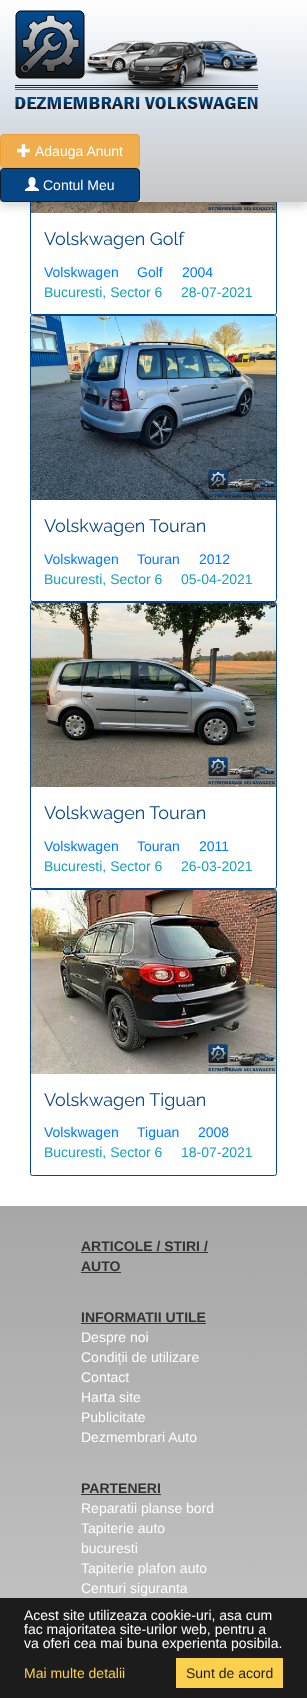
<?xml version="1.0" encoding="UTF-8"?>
<svg xmlns="http://www.w3.org/2000/svg" width="307" height="1698">
    <defs>
        <filter id="blur1" x="-50%" y="-200%" width="200%" height="500%"><feGaussianBlur stdDeviation="5"/></filter>
        <linearGradient id="g1" gradientUnits="userSpaceOnUse" x1="154" y1="0" x2="154" y2="202"><stop offset="0" stop-color="#FFFFFF"/><stop offset="0.49" stop-color="#DCE3EB"/><stop offset="1" stop-color="#C6C6C7"/></linearGradient>
        <linearGradient id="g2" gradientUnits="userSpaceOnUse" x1="153" y1="1206" x2="154" y2="1698"><stop offset="0" stop-color="#A8A7A7"/><stop offset="1" stop-color="#C6C6C7"/></linearGradient>
    </defs>
    <rect width="100%" height="100%" fill="#FFFFFF"/>
    <rect x="30.5" y="28.5" width="246" height="286" rx="2" fill="none" stroke="#074684"/>
    <image x="31" y="202" width="245" height="11" href="img_04.png"/>
    <rect x="0" y="5" width="307" height="202" fill="#000000" fill-opacity="0.15" filter="url(#blur1)"/>
    <rect x="0" y="0" width="307" height="202" fill="url(#g1)"/>
    <image x="15" y="10" width="243" height="99" href="img_01.png"/>
    <rect x="0.5" y="134.5" width="139" height="33" rx="3.5" fill="#F0AD4E" stroke="#EEA236"/>
    <image x="17" y="144" width="13" height="13" href="img_02.png"/>
    <text x="35" y="156" font-family="Liberation Sans" font-size="14" fill="#FFFFFF">Adauga Anunt</text>
    <rect x="0.5" y="168.5" width="139" height="33" rx="3.5" fill="#074684" stroke="#11202F"/>
    <image x="25" y="177" width="14" height="14" href="img_03.png"/>
    <text x="43" y="190" font-family="Liberation Sans" font-size="14" fill="#FFFFFF">Contul Meu</text>
    <text x="44" y="245" font-family="Raleway" font-size="18" font-weight="100" fill="#074684">Volskwagen Golf</text>
    <text x="44" y="277" font-family="Liberation Sans" font-size="14" fill="#007BFF">Volskwagen</text>
    <text x="137" y="277" font-family="Liberation Sans" font-size="14" fill="#007BFF">Golf</text>
    <text x="182" y="277" font-family="Liberation Sans" font-size="14" fill="#007BFF">2004</text>
    <text x="44" y="297" font-family="Liberation Sans" font-size="14" fill="#17A2B8">Bucuresti, Sector 6</text>
    <text x="181" y="297" font-family="Liberation Sans" font-size="14" fill="#17A2B8">28-07-2021</text>
    <rect x="30.5" y="315.5" width="246" height="286" rx="2" fill="none" stroke="#074684"/>
    <image x="31" y="316" width="245" height="184" href="img_05.png"/>
    <text x="44" y="532" font-family="Raleway" font-size="18" font-weight="100" fill="#074684">Volskwagen Touran</text>
    <text x="44" y="564" font-family="Liberation Sans" font-size="14" fill="#007BFF">Volskwagen</text>
    <text x="137" y="564" font-family="Liberation Sans" font-size="14" fill="#007BFF">Touran</text>
    <text x="199" y="564" font-family="Liberation Sans" font-size="14" fill="#007BFF">2012</text>
    <text x="44" y="584" font-family="Liberation Sans" font-size="14" fill="#17A2B8">Bucuresti, Sector 6</text>
    <text x="181" y="584" font-family="Liberation Sans" font-size="14" fill="#17A2B8">05-04-2021</text>
    <rect x="30.5" y="602.5" width="246" height="286" rx="2" fill="none" stroke="#074684"/>
    <image x="31" y="603" width="245" height="184" href="img_06.png"/>
    <text x="44" y="819" font-family="Raleway" font-size="18" font-weight="100" fill="#074684">Volskwagen Touran</text>
    <text x="44" y="851" font-family="Liberation Sans" font-size="14" fill="#007BFF">Volskwagen</text>
    <text x="137" y="851" font-family="Liberation Sans" font-size="14" fill="#007BFF">Touran</text>
    <text x="199" y="851" font-family="Liberation Sans" font-size="14" fill="#007BFF">2011</text>
    <text x="44" y="871" font-family="Liberation Sans" font-size="14" fill="#17A2B8">Bucuresti, Sector 6</text>
    <text x="181" y="871" font-family="Liberation Sans" font-size="14" fill="#17A2B8">26-03-2021</text>
    <rect x="30.5" y="889.5" width="246" height="286" rx="2" fill="none" stroke="#074684"/>
    <image x="31" y="890" width="245" height="184" href="img_07.png"/>
    <text x="44" y="1106" font-family="Raleway" font-size="18" font-weight="100" fill="#074684">Volskwagen Tiguan</text>
    <text x="44" y="1137" font-family="Liberation Sans" font-size="14" fill="#007BFF">Volskwagen</text>
    <text x="137" y="1137" font-family="Liberation Sans" font-size="14" fill="#007BFF">Tiguan</text>
    <text x="198" y="1137" font-family="Liberation Sans" font-size="14" fill="#007BFF">2008</text>
    <text x="44" y="1157" font-family="Liberation Sans" font-size="14" fill="#17A2B8">Bucuresti, Sector 6</text>
    <text x="181" y="1157" font-family="Liberation Sans" font-size="14" fill="#17A2B8">18-07-2021</text>
    <rect x="0" y="1206" width="307" height="392" fill="url(#g2)"/>
    <text x="81" y="1251" font-family="Liberation Sans" font-size="14" font-weight="700" fill="#333333">ARTICOLE / STIRI /</text>
    <rect x="81" y="1252" width="127" height="1" fill="#333333"/>
    <text x="81" y="1271" font-family="Liberation Sans" font-size="14" font-weight="700" fill="#333333">AUTO</text>
    <rect x="81" y="1272" width="40" height="1" fill="#333333"/>
    <text x="81" y="1322" font-family="Liberation Sans" font-size="14" font-weight="700" fill="#333333">INFORMATII UTILE</text>
    <rect x="81" y="1323" width="125" height="1" fill="#333333"/>
    <text font-family="Liberation Sans" font-size="14" fill="#FFFFFF">
        <tspan x="81" y="1342">Despre noi</tspan>
        <tspan x="81" y="1362">Condiții de utilizare</tspan>
        <tspan x="81" y="1382">Contact</tspan>
        <tspan x="81" y="1402">Harta site</tspan>
        <tspan x="81" y="1422">Publicitate</tspan>
        <tspan x="81" y="1442">Dezmembrari Auto</tspan>
    </text>
    <text x="81" y="1493" font-family="Liberation Sans" font-size="14" font-weight="700" fill="#333333">PARTENERI</text>
    <rect x="81" y="1494" width="80" height="1" fill="#333333"/>
    <text font-family="Liberation Sans" font-size="14" fill="#FFFFFF">
        <tspan x="81" y="1513">Reparatii planse bord</tspan>
        <tspan x="81" y="1533">Tapiterie auto</tspan>
        <tspan x="81" y="1553">bucuresti</tspan>
        <tspan x="81" y="1573">Tapiterie plafon auto</tspan>
        <tspan x="81" y="1593">Centuri siguranta</tspan>
    </text>
    <rect x="0" y="1598" width="307" height="100" fill="#1C1C1C"/>
    <text font-family="Liberation Sans" font-size="14" fill="#FFFFFF">
        <tspan x="24" y="1620">Acest site utilizeaza cookie-uri, asa cum</tspan>
        <tspan x="24" y="1634">fac majoritatea site-urilor web, pentru a</tspan>
        <tspan x="24" y="1648">va oferi cea mai buna experienta posibila.</tspan>
    </text>
    <text x="24" y="1678" font-family="Liberation Sans" font-size="14" fill="#FAD04C">Mai multe detalii</text>
    <rect x="176" y="1658" width="107" height="30" fill="#FAD04C"/>
    <text x="186" y="1678" font-family="Liberation Sans" font-size="14" fill="#1C1C1C">Sunt de acord</text>
</svg>
